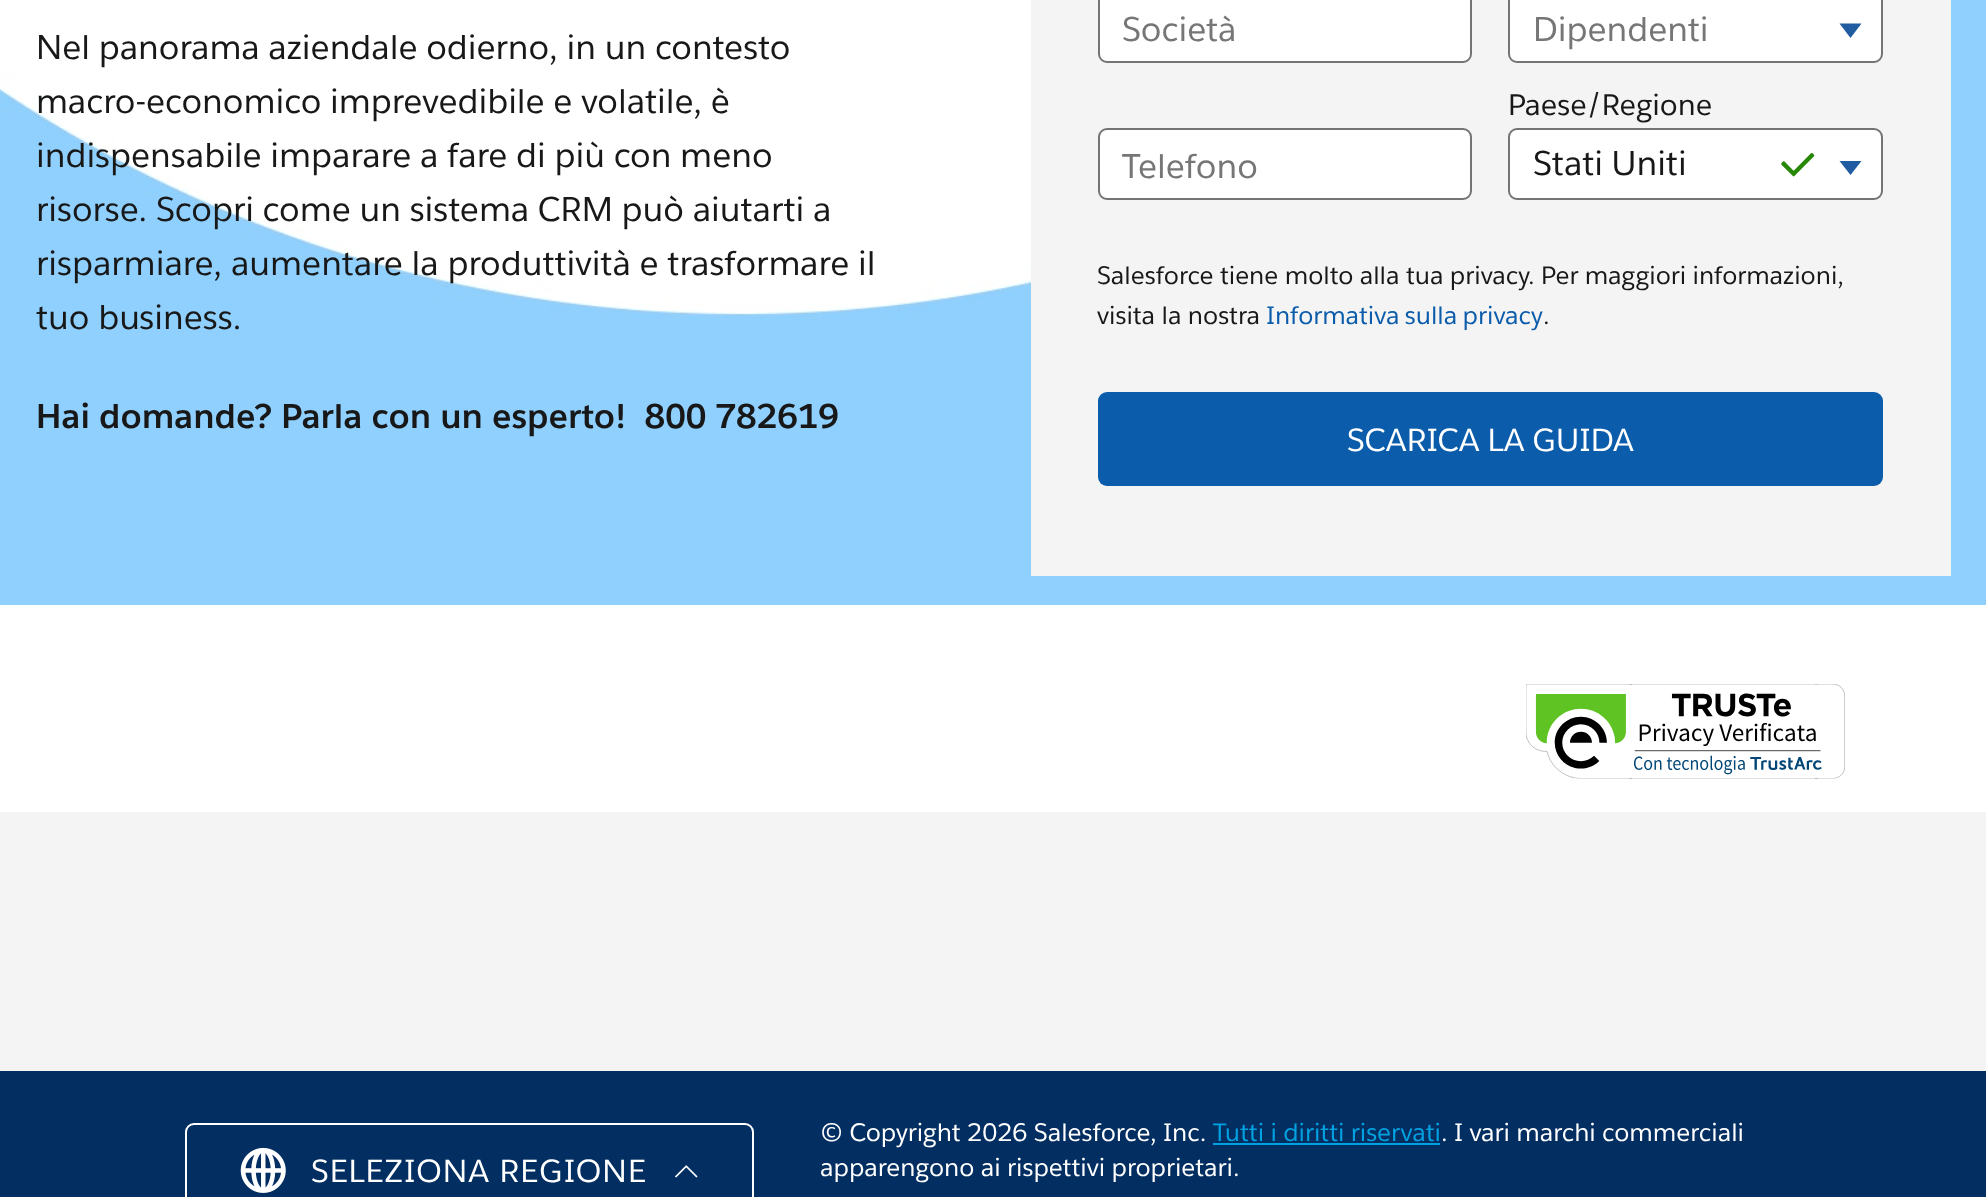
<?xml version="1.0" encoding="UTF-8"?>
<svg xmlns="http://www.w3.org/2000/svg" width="1986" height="1197">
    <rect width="100%" height="100%" fill="#F4F4F4"/>
    <image x="0" y="0" width="1986" height="605" href="img_01.png"/>
    <text font-family="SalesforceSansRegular" font-size="33.75" fill="#181818">
        <tspan x="36" y="59">Nel panorama aziendale odierno, in un contesto</tspan>
        <tspan x="36" y="113">macro-economico imprevedibile e volatile, è</tspan>
        <tspan x="36" y="167">indispensabile imparare a fare di più con meno</tspan>
        <tspan x="36" y="221">risorse. Scopri come un sistema CRM può aiutarti a</tspan>
        <tspan x="36" y="275">risparmiare, aumentare la produttività e trasformare il</tspan>
        <tspan x="36" y="329">tuo business.</tspan>
    </text>
    <text x="36" y="428" font-family="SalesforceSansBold" font-size="33.75" font-weight="700" fill="#181818" xml:space="preserve">Hai domande? Parla con un esperto!  800 782619</text>
    <rect x="1031" y="0" width="920" height="576" fill="#F4F4F4"/>
    <rect x="1099" y="-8" width="372" height="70" rx="8" fill="#FFFFFF" stroke="#747474" stroke-width="2"/>
    <text x="1122" y="41" font-family="SalesforceSansRegular" font-size="33.75" fill="#767676">Società</text>
    <rect x="1509" y="-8" width="373" height="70" rx="8" fill="#FFFFFF" stroke="#747474" stroke-width="2"/>
    <text x="1533" y="41" font-family="SalesforceSansRegular" font-size="33.75" fill="#767676">Dipendenti</text>
    <path d="M 1839.5 23.5 H 1861.5 L 1850.5 38 Z" fill="#215CA0"/>
    <rect x="1099" y="129" width="372" height="70" rx="8" fill="#FFFFFF" stroke="#747474" stroke-width="2"/>
    <text x="1122" y="178" font-family="SalesforceSansRegular" font-size="33.75" fill="#767676">Telefono</text>
    <text x="1508" y="115" font-family="SalesforceSansRegular" font-size="29.25" fill="#181818">Paese/Regione</text>
    <rect x="1509" y="129" width="373" height="70" rx="8" fill="#FFFFFF" stroke="#747474" stroke-width="2"/>
    <text x="1533" y="175" font-family="SalesforceSansRegular" font-size="33.75" fill="#181818">Stati Uniti</text>
    <image x="1781" y="153" width="34" height="24" href="img_02.png"/>
    <path d="M 1839.5 161 H 1861.5 L 1850.5 175 Z" fill="#215CA0"/>
    <text font-family="SalesforceSansRegular" font-size="24.75" fill="#181818">
        <tspan x="1097" y="284">Salesforce tiene molto alla tua privacy. Per maggiori informazioni,</tspan>
        <tspan x="1097" y="324">visita la nostra</tspan>
    </text>
    <text x="1266" y="324" word-spacing="-1" font-family="SalesforceSansRegular" font-size="24.75" fill="#0B5CAB">Informativa sulla privacy</text>
    <text x="1543" y="324" font-family="SalesforceSansRegular" font-size="24.75" fill="#181818">.</text>
    <rect x="1098" y="392" width="785" height="94" rx="9" fill="#0B5CAB"/>
    <text x="1347" y="451" font-family="SalesforceSansRegular" font-size="31.5" fill="#FFFFFF">SCARICA LA GUIDA</text>
    <rect x="0" y="605" width="1986" height="207" fill="#FFFFFF"/>
    <image x="1526" y="684" width="319" height="95" href="img_03.png"/>
    <rect x="0" y="1071" width="1986" height="126" fill="#032E61"/>
    <rect x="186" y="1124" width="567" height="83" rx="8" fill="none" stroke="#FFFFFF" stroke-width="2"/>
    <image x="240" y="1147" width="46" height="46" href="img_04.png"/>
    <text x="311" y="1182" font-family="SalesforceSansRegular" font-size="31.5" letter-spacing="1.1" fill="#FFFFFF">SELEZIONA REGIONE</text>
    <image x="675" y="1165" width="23" height="13" href="img_05.png"/>
    <text x="820" y="1141" font-family="SalesforceSansRegular" font-size="24.75" fill="#FFFFFF">© Copyright 2026 Salesforce, Inc.</text>
    <text x="1213" y="1141" font-family="SalesforceSansRegular" font-size="24.75" fill="#00A1E0">Tutti i diritti riservati</text>
    <rect x="1213" y="1143" width="227" height="2" fill="#00A1E0"/>
    <text x="1441" y="1141" font-family="SalesforceSansRegular" font-size="24.75" fill="#FFFFFF">. I vari marchi commerciali</text>
    <text x="820" y="1176" font-family="SalesforceSansRegular" font-size="24.75" fill="#FFFFFF">apparengono ai rispettivi proprietari.</text>
</svg>
